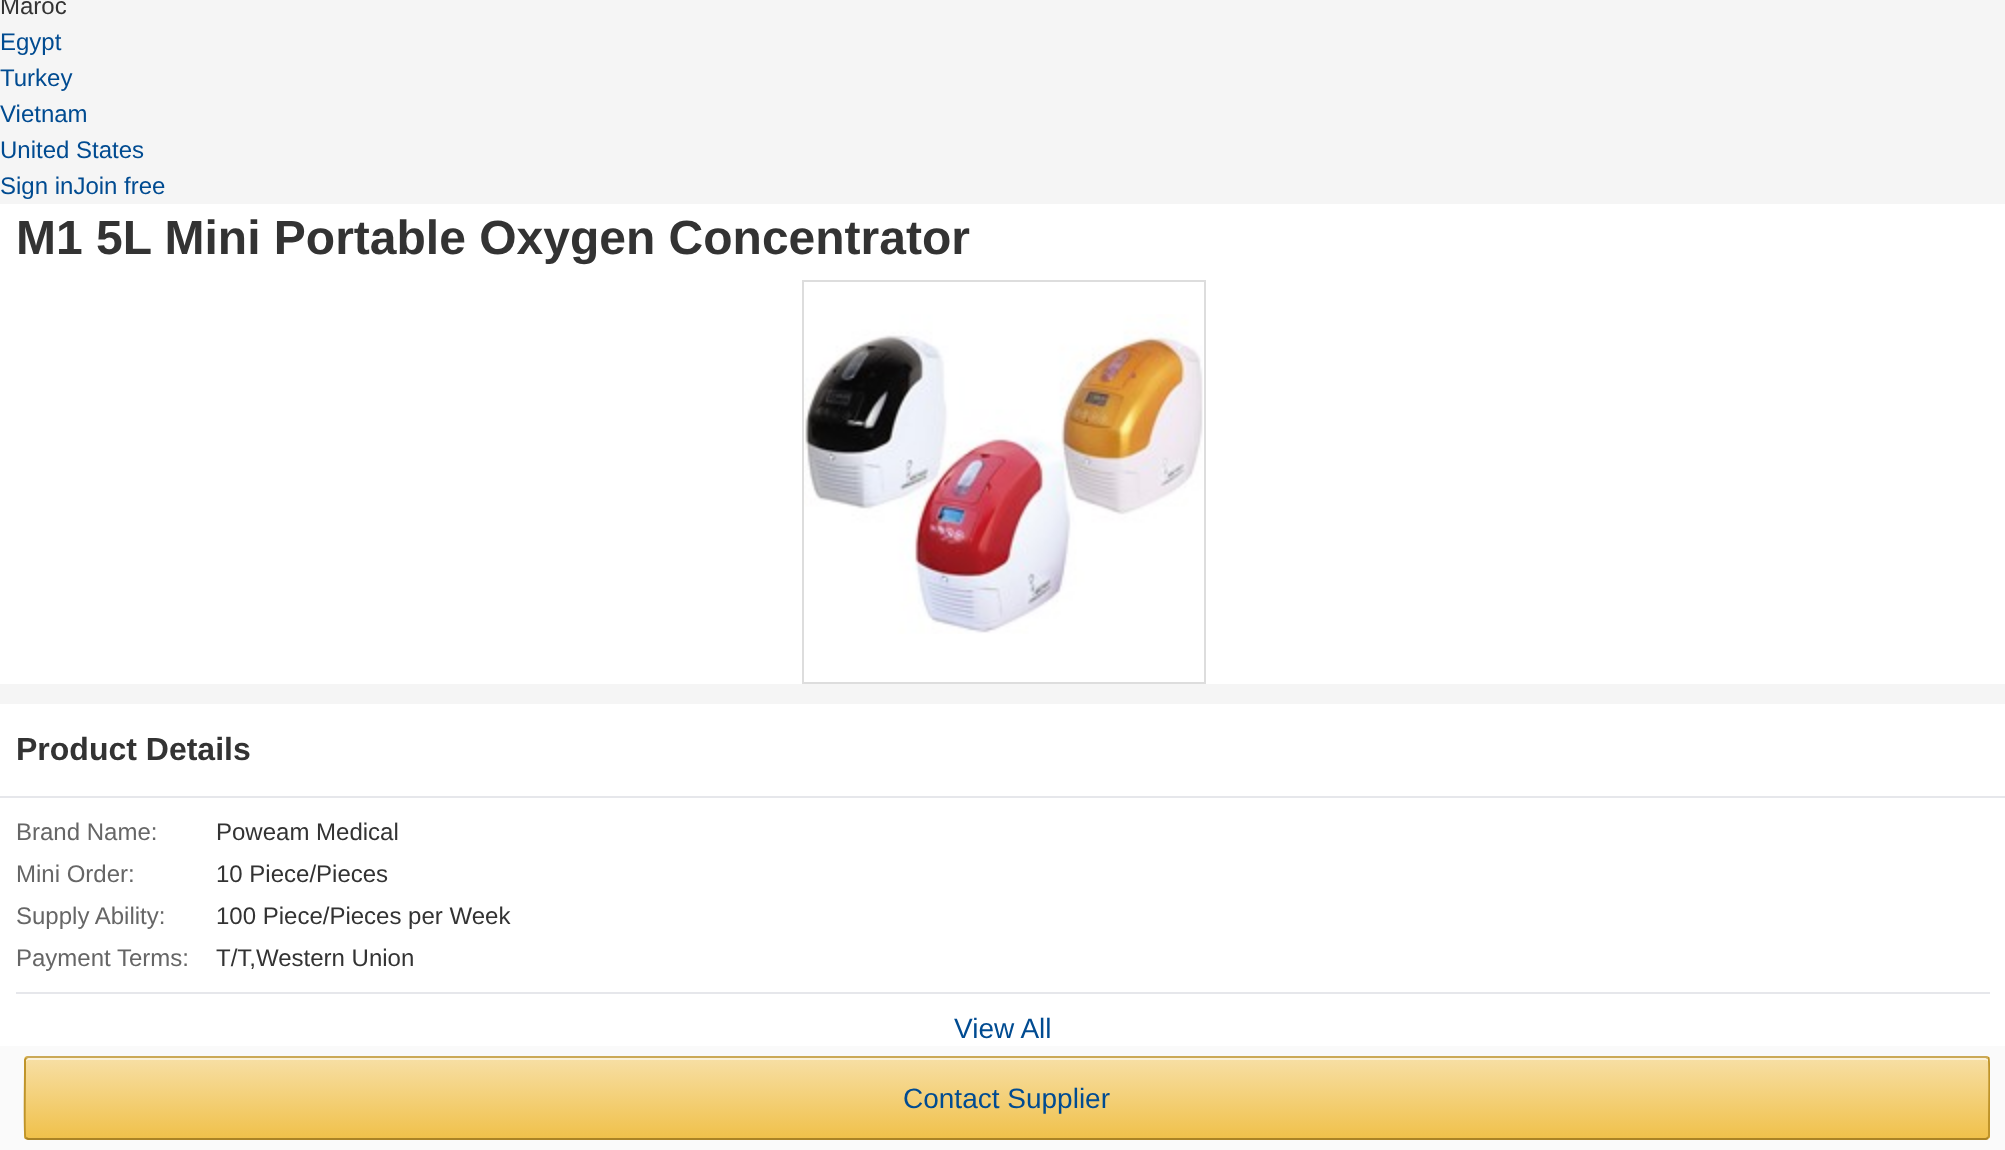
<?xml version="1.0" encoding="UTF-8"?>
<svg xmlns="http://www.w3.org/2000/svg" width="2005" height="1150">
    <defs>
        <clipPath id="clip1"><rect x="24" y="1056" width="1966" height="84" rx="4"/></clipPath>
        <linearGradient id="g1" gradientUnits="userSpaceOnUse" x1="1007" y1="978" x2="1007" y2="1058"><stop offset="0" stop-color="#F7DFA5"/><stop offset="1" stop-color="#F0C14B"/></linearGradient>
        <linearGradient id="g2" gradientUnits="userSpaceOnUse" x1="1007" y1="1058" x2="1007" y2="1138"><stop offset="0" stop-color="#F7DFA5"/><stop offset="1" stop-color="#F0C14B"/></linearGradient>
        <linearGradient id="g3" gradientUnits="userSpaceOnUse" x1="1007" y1="1138" x2="1007" y2="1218"><stop offset="0" stop-color="#F7DFA5"/><stop offset="1" stop-color="#F0C14B"/></linearGradient>
        <clipPath id="clip2"><rect x="16" y="1056" width="1974" height="84"/></clipPath>
    </defs>
    <rect width="100%" height="100%" fill="#F5F5F5"/>
    <text x="0" y="14" font-family="Liberation Sans" font-size="24" fill="#333333">Maroc</text>
    <text font-family="Liberation Sans" font-size="24" fill="#004B91">
        <tspan x="0" y="50">Egypt</tspan>
        <tspan x="0" y="86">Turkey</tspan>
        <tspan x="0" y="122">Vietnam</tspan>
        <tspan x="0" y="158">United States</tspan>
        <tspan x="0" y="194">Sign inJoin free</tspan>
    </text>
    <rect x="0" y="204" width="2005" height="480" fill="#FFFFFF"/>
    <text x="16" y="254" font-family="Liberation Sans" font-size="48" font-weight="700" fill="#333333">M1 5L Mini Portable Oxygen Concentrator</text>
    <image x="804" y="314" width="399" height="320" href="img_01.png"/>
    <rect x="803" y="281" width="402" height="402" fill="none" stroke="#DDDDDD" stroke-width="2"/>
    <rect x="0" y="704" width="2005" height="92" fill="#FFFFFF"/>
    <rect x="0" y="796" width="2005" height="2" fill="#E6E7EB"/>
    <text x="16" y="760" font-family="Liberation Sans" font-size="32" font-weight="700" fill="#333333">Product Details</text>
    <rect x="0" y="798" width="2005" height="248" fill="#FFFFFF"/>
    <text x="16" y="840" font-family="Liberation Sans" font-size="24" fill="#666666">Brand Name:</text>
    <text x="216" y="840" font-family="Liberation Sans" font-size="24" fill="#333333">Poweam Medical</text>
    <text x="16" y="882" font-family="Liberation Sans" font-size="24" fill="#666666">Mini Order:</text>
    <text x="216" y="882" font-family="Liberation Sans" font-size="24" fill="#333333">10 Piece/Pieces</text>
    <text x="16" y="924" font-family="Liberation Sans" font-size="24" fill="#666666">Supply Ability:</text>
    <text x="216" y="924" font-family="Liberation Sans" font-size="24" fill="#333333">100 Piece/Pieces per Week</text>
    <text x="16" y="966" font-family="Liberation Sans" font-size="24" fill="#666666">Payment Terms:</text>
    <text x="216" y="966" font-family="Liberation Sans" font-size="24" fill="#333333">T/T,Western Union</text>
    <rect x="16" y="992" width="1974" height="2" fill="#E6E7EB"/>
    <text x="954" y="1038" font-family="Liberation Sans" font-size="28" fill="#004B91">View All</text>
    <rect x="0" y="1046" width="2005" height="104" fill="#FAFAFA"/>
    <g clip-path="url(#clip1)">
        <rect x="24" y="1056" width="1966" height="2" fill="url(#g1)"/>
        <rect x="24" y="1058" width="1966" height="80" fill="url(#g2)"/>
        <rect x="24" y="1138" width="1966" height="2" fill="url(#g3)"/>
    </g>
    <path d="M 28 1060 H 1986 C 1987 1060 1988 1061 1988 1062 V 1059 L 1986 1058 H 28 C 27 1058 26 1059 26 1060 V 1062 C 26 1061 27 1060 28 1060 Z" fill="#FCF2DA"/>
    <path d="M 26 1058 L 28 1057 H 1986 L 1988 1058" fill="none" stroke="#CBA957" stroke-width="2"/>
    <g clip-path="url(#clip2)">
        <path d="M 1988 1058 H 1988.5 C 1990 1060 1989 1116 1989 1123.5 V 1136 L 1988 1138" fill="none" stroke="#BF942A" stroke-width="2"/>
    </g>
    <path d="M 1988 1138 L 1986 1139 H 28 L 26 1138" fill="none" stroke="#AA8326" stroke-width="2"/>
    <path d="M 26 1138 H 25.5 C 24 1136 25 1080 25 1072.5 V 1060 L 26 1058" fill="none" stroke="#BF942A" stroke-width="2"/>
    <text x="903" y="1108" font-family="Liberation Sans" font-size="28" fill="#004B91">Contact Supplier</text>
</svg>
